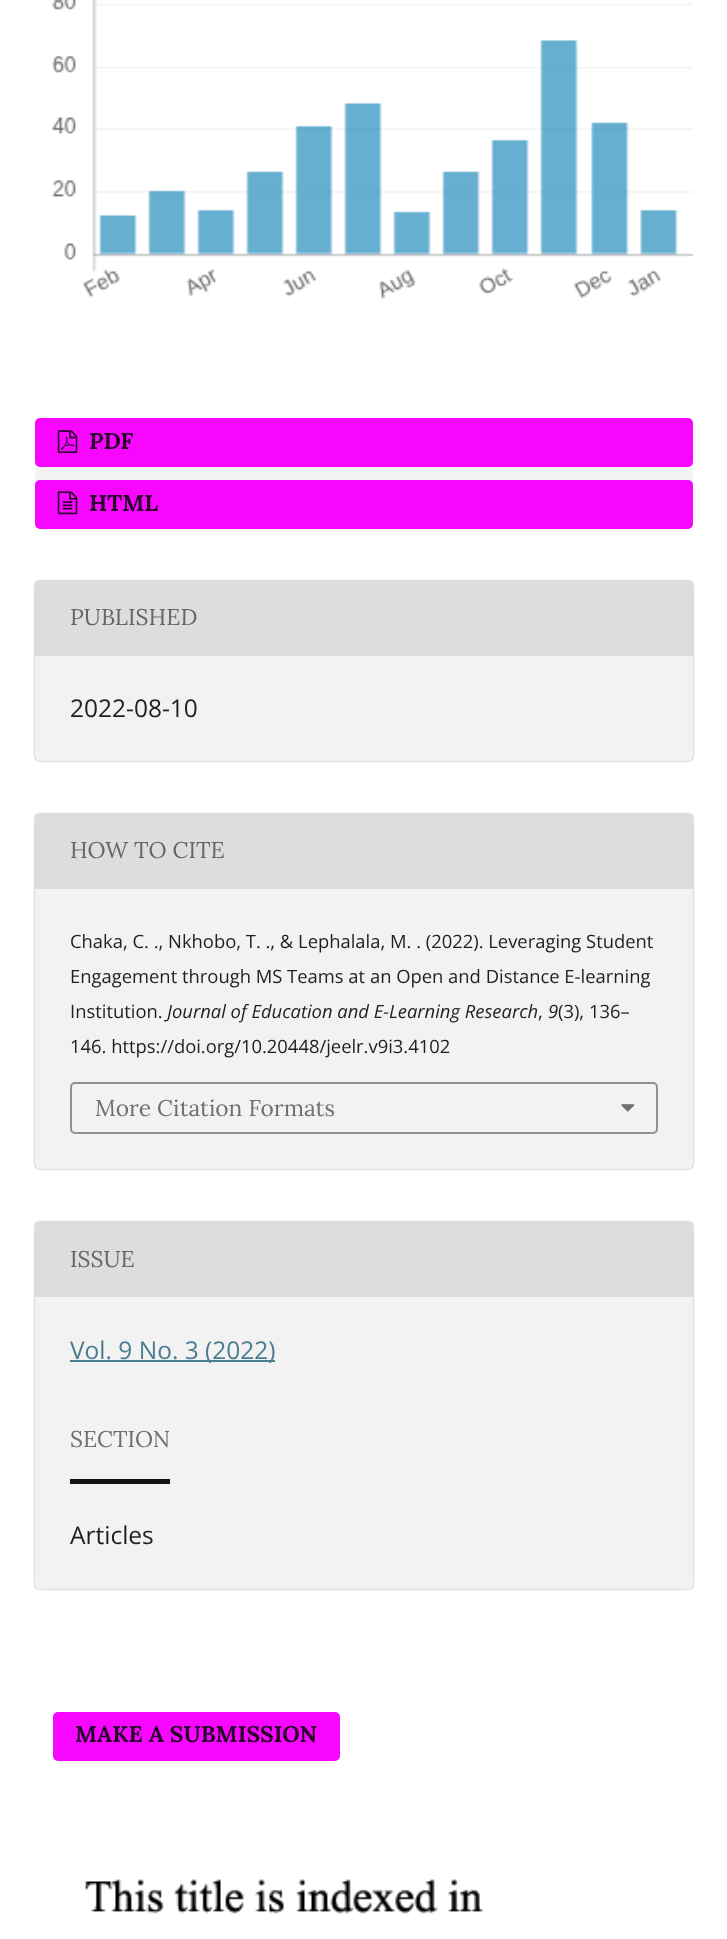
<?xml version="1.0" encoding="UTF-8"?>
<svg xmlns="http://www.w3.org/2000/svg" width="727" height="1939">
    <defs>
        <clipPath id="clip1"><path d="M 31 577 H 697 V 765 H 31 Z M 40 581 H 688 C 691 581 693 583 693 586 V 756 C 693 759 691 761 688 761 H 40 C 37 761 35 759 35 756 V 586 C 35 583 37 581 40 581 Z" clip-rule="evenodd"/></clipPath>
        <filter id="blur1" x="-50%" y="-200%" width="200%" height="500%"><feGaussianBlur stdDeviation="1"/></filter>
        <clipPath id="clip2"><path d="M 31 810 H 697 V 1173 H 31 Z M 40 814 H 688 C 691 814 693 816 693 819 V 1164 C 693 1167 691 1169 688 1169 H 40 C 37 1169 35 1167 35 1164 V 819 C 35 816 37 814 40 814 Z" clip-rule="evenodd"/></clipPath>
        <clipPath id="clip3"><path d="M 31 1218 H 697 V 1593 H 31 Z M 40 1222 H 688 C 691 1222 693 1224 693 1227 V 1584 C 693 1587 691 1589 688 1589 H 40 C 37 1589 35 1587 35 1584 V 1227 C 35 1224 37 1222 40 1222 Z" clip-rule="evenodd"/></clipPath>
    </defs>
    <rect width="100%" height="100%" fill="#FFFFFF"/>
    <image x="52" y="0" width="641" height="300" href="img_01.png"/>
    <rect x="35" y="418" width="658" height="111" rx="5" fill="#F2F2F2"/>
    <rect x="35" y="418" width="658" height="49" rx="5" fill="#F707FF"/>
    <image x="57" y="430" width="21" height="23" href="img_02.png"/>
    <text x="89" y="449" font-family="Lora" font-size="22.75" font-weight="700" fill="#280129">PDF</text>
    <rect x="35" y="480" width="658" height="49" rx="5" fill="#F707FF"/>
    <image x="57" y="491" width="21" height="24" href="img_03.png"/>
    <text x="89" y="511" font-family="Lora" font-size="22.75" font-weight="700" fill="#280129">HTML</text>
    <g clip-path="url(#clip1)">
        <rect x="35" y="581" width="658" height="180" rx="5" fill="#000000" fill-opacity="0.4" filter="url(#blur1)"/>
    </g>
    <rect x="35" y="581" width="658" height="180" fill="#000000" fill-opacity="0.05"/>
    <path d="M 40 581 H 688 C 691 581 693 583 693 586 V 656 H 35 V 586 C 35 583 37 581 40 581 Z" fill="#DDDDDD"/>
    <text x="70" y="625" font-family="Lora" font-size="22.75" fill="#666666">PUBLISHED</text>
    <text x="70" y="717" font-family="Open Sans" font-size="24.5" fill="#1F1F1F">2022-08-10</text>
    <g clip-path="url(#clip2)">
        <rect x="35" y="814" width="658" height="355" rx="5" fill="#000000" fill-opacity="0.4" filter="url(#blur1)"/>
    </g>
    <rect x="35" y="814" width="658" height="355" fill="#000000" fill-opacity="0.05"/>
    <path d="M 40 814 H 688 C 691 814 693 816 693 819 V 889 H 35 V 819 C 35 816 37 814 40 814 Z" fill="#DDDDDD"/>
    <text x="70" y="858" font-family="Lora" font-size="22.75" fill="#666666">HOW TO CITE</text>
    <text font-family="Open Sans" font-size="18.4" fill="#1F1F1F">
        <tspan x="70" y="948">Chaka, C. ., Nkhobo, T. ., &amp; Lephalala, M. . (2022). Leveraging Student</tspan>
        <tspan x="70" y="983">Engagement through MS Teams at an Open and Distance E-learning</tspan>
        <tspan x="70" y="1018">Institution.</tspan>
    </text>
    <text x="167" y="1018" font-family="Open Sans" font-size="18.4" font-style="italic" fill="#1F1F1F">Journal of Education and E-Learning Research</text>
    <text x="538" y="1018" font-family="Open Sans" font-size="18.4" fill="#1F1F1F">,</text>
    <text x="548" y="1018" font-family="Open Sans" font-size="18.4" font-style="italic" fill="#1F1F1F">9</text>
    <text x="558" y="1018" font-family="Open Sans" font-size="18.4" fill="#1F1F1F">(3), 136–</text>
    <text x="70" y="1053" font-family="Open Sans" font-size="18.4" fill="#1F1F1F">146. https://doi.org/10.20448/jeelr.v9i3.4102</text>
    <rect x="71" y="1083" width="586" height="50" rx="4" fill="none" stroke="#919191" stroke-width="2"/>
    <text x="95" y="1116" font-family="Lora" font-size="22.75" fill="#6F6F6F">More Citation Formats</text>
    <image x="621" y="1104" width="14" height="8" href="img_04.png"/>
    <g clip-path="url(#clip3)">
        <rect x="35" y="1222" width="658" height="367" rx="5" fill="#000000" fill-opacity="0.4" filter="url(#blur1)"/>
    </g>
    <rect x="35" y="1222" width="658" height="367" fill="#000000" fill-opacity="0.05"/>
    <path d="M 40 1222 H 688 C 691 1222 693 1224 693 1227 V 1297 H 35 V 1227 C 35 1224 37 1222 40 1222 Z" fill="#DDDDDD"/>
    <text x="70" y="1267" font-family="Lora" font-size="22.75" fill="#666666">ISSUE</text>
    <rect x="70" y="1360" width="205" height="2" fill="#4B7D92"/>
    <text x="70" y="1359" font-family="Open Sans" font-size="24.5" fill="#4B7D92">Vol. 9 No. 3 (2022)</text>
    <rect x="70" y="1479" width="100" height="5" fill="#121212"/>
    <text x="70" y="1447" font-family="Lora" font-size="22.75" fill="#6F6F6F">SECTION</text>
    <text x="70" y="1544" font-family="Open Sans" font-size="24.5" fill="#1F1F1F">Articles</text>
    <rect x="53" y="1712" width="287" height="49" rx="5" fill="#F707FF"/>
    <text x="75" y="1742" font-family="Lora" font-size="22.75" font-weight="700" fill="#280129">MAKE A SUBMISSION</text>
    <image x="85" y="1879" width="399" height="35" href="img_05.png"/>
</svg>
